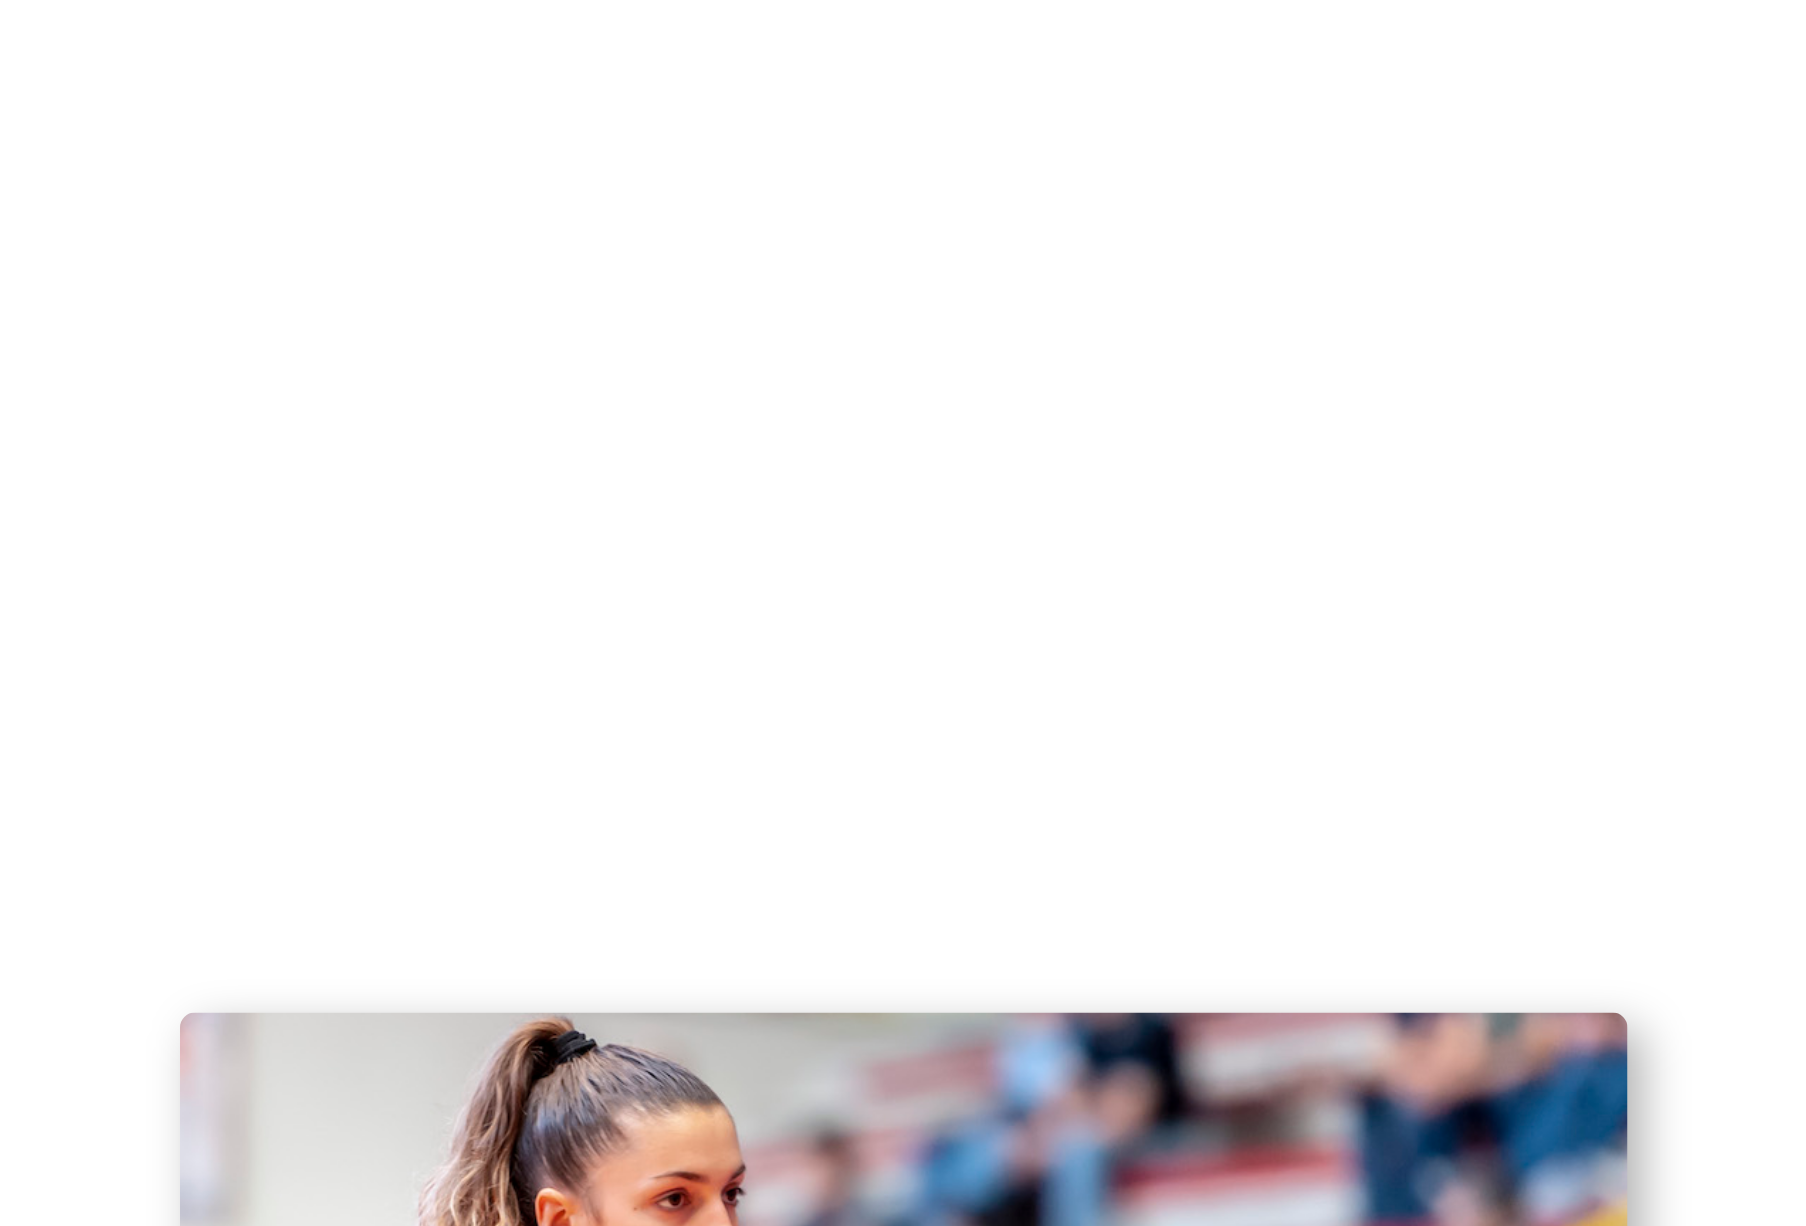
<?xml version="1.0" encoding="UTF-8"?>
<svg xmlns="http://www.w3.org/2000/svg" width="1806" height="1226">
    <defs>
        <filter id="blur1" x="-50%" y="-200%" width="200%" height="500%"><feGaussianBlur stdDeviation="22.5"/></filter>
    </defs>
    <rect width="100%" height="100%" fill="#FFFFFF"/>
    <rect x="195" y="1028" width="1448" height="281" rx="15" fill="#000000" fill-opacity="0.3" filter="url(#blur1)"/>
    <image x="180" y="1012" width="1448" height="214" href="img_01.png"/>
</svg>
